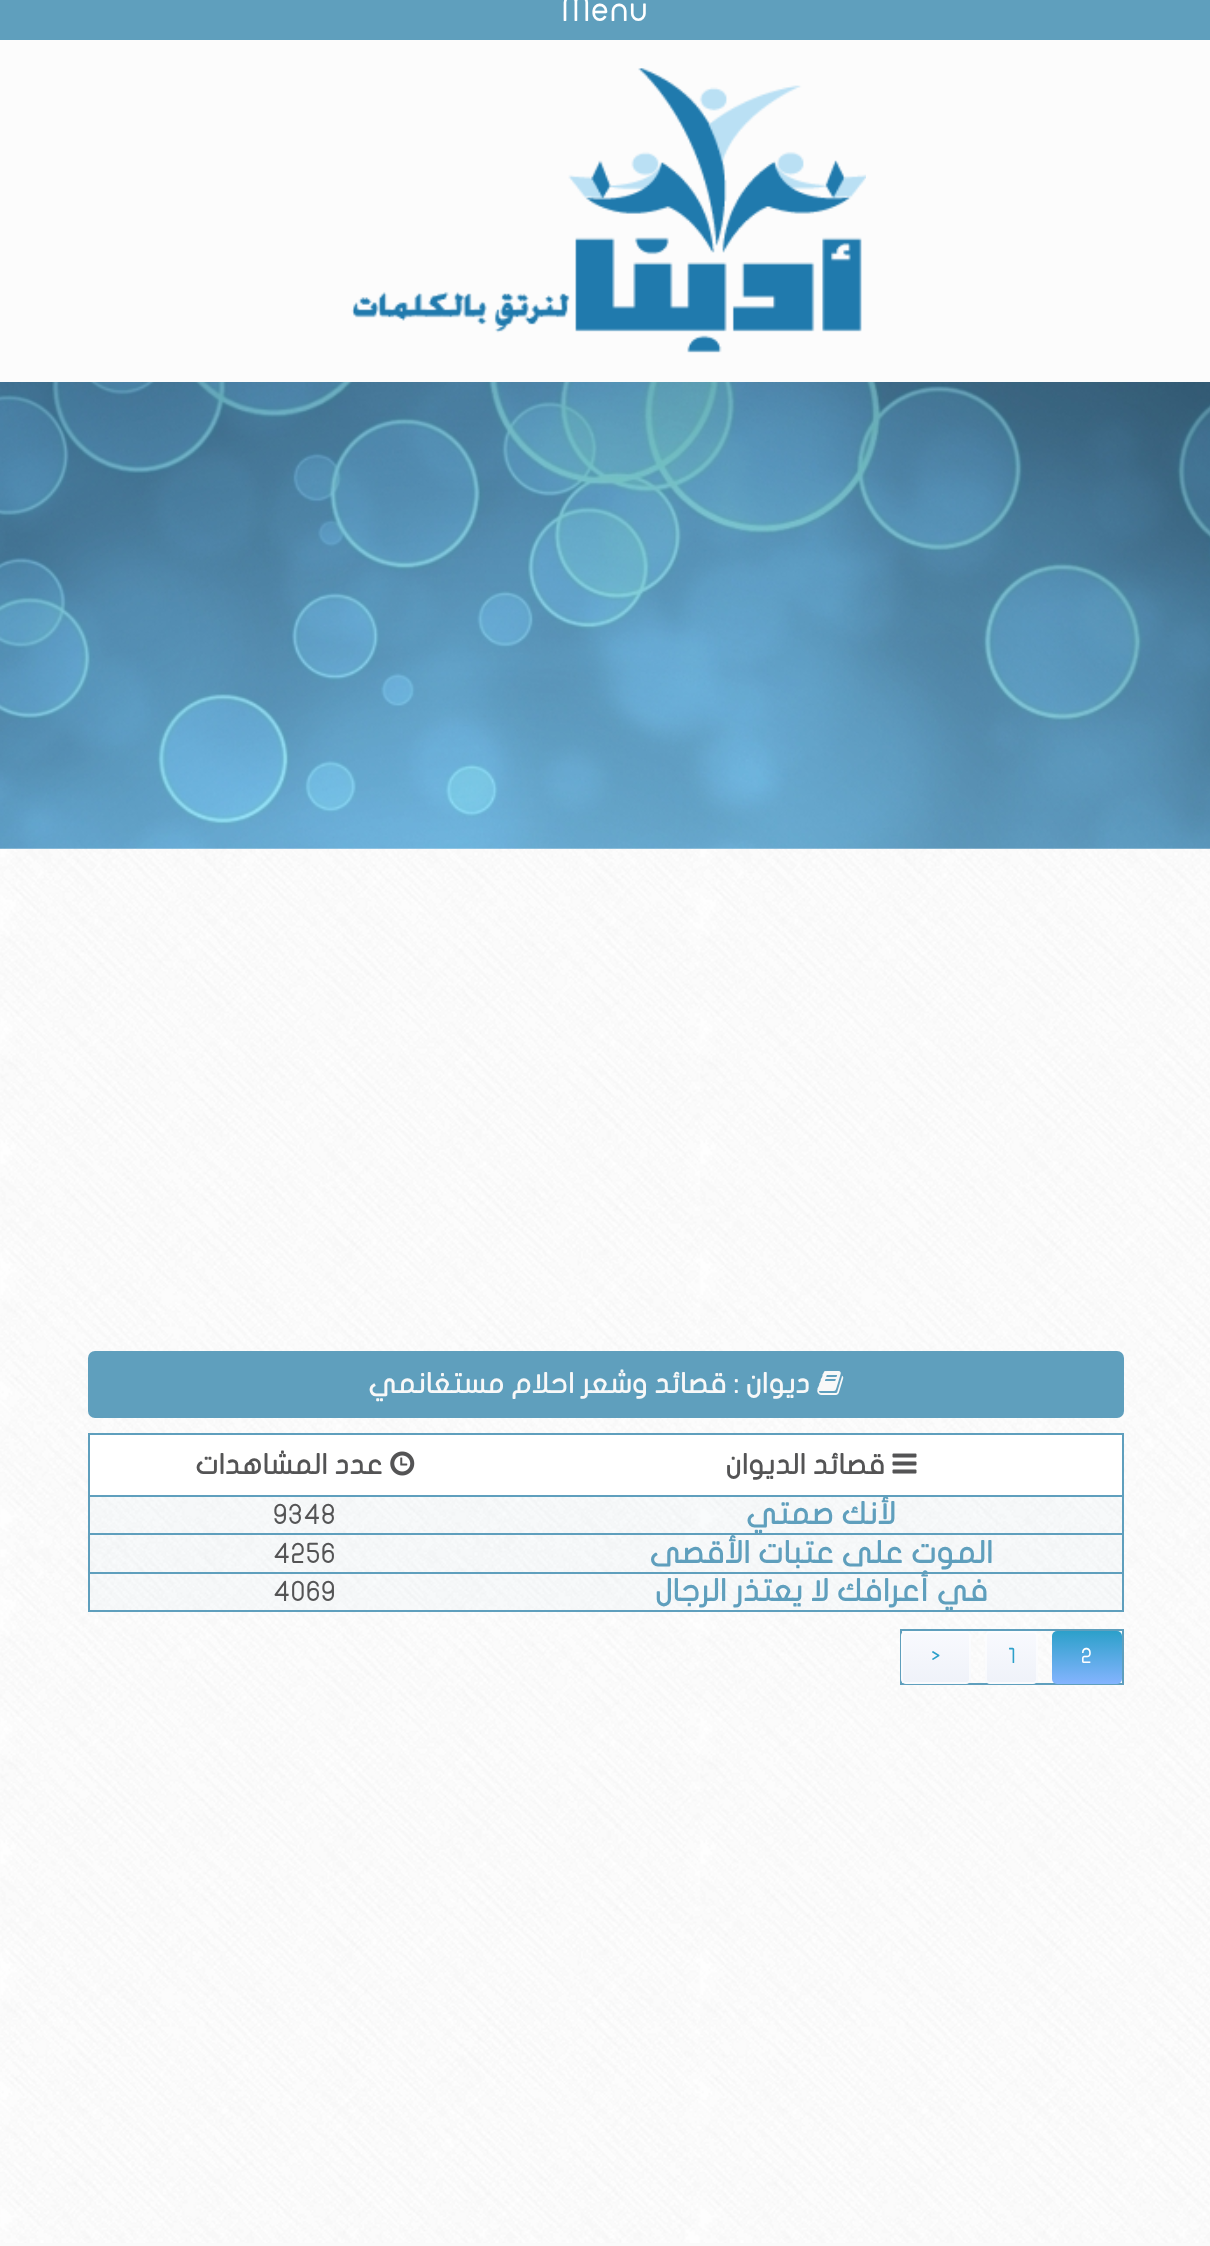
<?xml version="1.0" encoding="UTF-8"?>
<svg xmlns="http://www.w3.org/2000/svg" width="1210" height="2246">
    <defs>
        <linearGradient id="g1" gradientUnits="userSpaceOnUse" x1="1087" y1="1631" x2="1087" y2="1684"><stop offset="0" stop-color="#2CA0CA"/><stop offset="1" stop-color="#84B4FE"/></linearGradient>
        <linearGradient id="g2" gradientUnits="userSpaceOnUse" x1="1012" y1="1631" x2="1012" y2="1684"><stop offset="0" stop-color="#F9FAFE"/><stop offset="1" stop-color="#EFF2F9"/></linearGradient>
        <linearGradient id="g3" gradientUnits="userSpaceOnUse" x1="936" y1="1631" x2="936" y2="1684"><stop offset="0" stop-color="#F9FAFE"/><stop offset="1" stop-color="#EFF2F9"/></linearGradient>
    </defs>
    <rect width="100%" height="100%" fill="#FFFFFF"/>
    <image x="0" y="382" width="1210" height="467" href="img_01.png"/>
    <rect x="0" y="0" width="1210" height="40" fill="#5F9FBD"/>
    <text x="562" y="21" font-family="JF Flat" font-size="35" fill="#FFFFFF">Menu</text>
    <rect x="0" y="40" width="1210" height="342" fill="#FCFCFC"/>
    <image x="351" y="68" width="515" height="285" href="img_02.png"/>
    <rect x="0" y="2243" width="1210" height="3" fill="#FAFAFA"/>
    <image x="0" y="848" width="1210" height="1395" href="img_03.png"/>
    <rect x="88" y="1351" width="1036" height="67" rx="7" fill="#5F9FBD"/>
    <image x="817" y="1371" width="27" height="24" href="img_04.png"/>
    <text x="810" y="1393" font-family="JF Flat" font-size="28" font-weight="700" direction="rtl" fill="#F8F8F8">ديوان : قصائد وشعر احلام مستغانمي</text>
    <rect x="90" y="1497" width="1032" height="113" fill="#5F9FBD" fill-opacity="0.03"/>
    <rect x="88" y="1433" width="1036" height="2" fill="#5F9FBD"/>
    <rect x="1122" y="1433" width="2" height="179" fill="#5F9FBD"/>
    <rect x="88" y="1610" width="1036" height="2" fill="#5F9FBD"/>
    <rect x="88" y="1433" width="2" height="179" fill="#5F9FBD"/>
    <rect x="90" y="1435" width="1032" height="60" fill="#FFFFFF"/>
    <image x="892" y="1453" width="25" height="21" href="img_05.png"/>
    <text x="885" y="1474" font-family="JF Flat" font-size="28" font-weight="700" direction="rtl" fill="#545455">قصائد الديوان</text>
    <image x="390" y="1451" width="25" height="25" href="img_06.png"/>
    <text x="383" y="1474" font-family="JF Flat" font-size="28" font-weight="700" direction="rtl" fill="#545455">عدد المشاهدات</text>
    <rect x="88" y="1495" width="1036" height="2" fill="#5F9FBD"/>
    <rect x="88" y="1533" width="1036" height="2" fill="#5F9FBD"/>
    <text x="896" y="1524" font-family="JF Flat" font-size="30.75" font-weight="700" direction="rtl" fill="#5F9FBD">لأنك صمتي</text>
    <text x="273" y="1524" font-family="JF Flat" font-size="28" fill="#545455">9348</text>
    <text x="993" y="1563" font-family="JF Flat" font-size="30.75" font-weight="700" direction="rtl" fill="#5F9FBD">الموت على عتبات الأقصى</text>
    <text x="273" y="1563" font-family="JF Flat" font-size="28" fill="#545455">4256</text>
    <rect x="88" y="1572" width="1036" height="2" fill="#5F9FBD"/>
    <text x="988" y="1601" font-family="JF Flat" font-size="30.75" font-weight="700" direction="rtl" fill="#5F9FBD">في أعرافك لا يعتذر الرجال</text>
    <text x="273" y="1601" font-family="JF Flat" font-size="28" fill="#545455">4069</text>
    <rect x="901" y="1630" width="222" height="54" fill="none" stroke="#5F9FBD" stroke-width="2"/>
    <rect x="1052" y="1631" width="70" height="53" rx="5" fill="url(#g1)"/>
    <text x="1081" y="1663" font-family="JF Flat" font-size="21" fill="#FFFFFF">2</text>
    <rect x="985" y="1631" width="53" height="53" rx="5" fill="url(#g2)"/>
    <rect x="986" y="1632" width="51" height="51" rx="4" fill="none" stroke="#FFFFFF" stroke-opacity="0.6" stroke-width="2"/>
    <text x="1008" y="1663" font-family="JF Flat" font-size="21" fill="#2CA0CA">1</text>
    <rect x="901" y="1631" width="70" height="53" rx="5" fill="url(#g3)"/>
    <rect x="902" y="1632" width="68" height="51" rx="4" fill="none" stroke="#FFFFFF" stroke-opacity="0.6" stroke-width="2"/>
    <text x="931" y="1663" font-family="JF Flat" font-size="21" fill="#2CA0CA">&gt;</text>
</svg>
